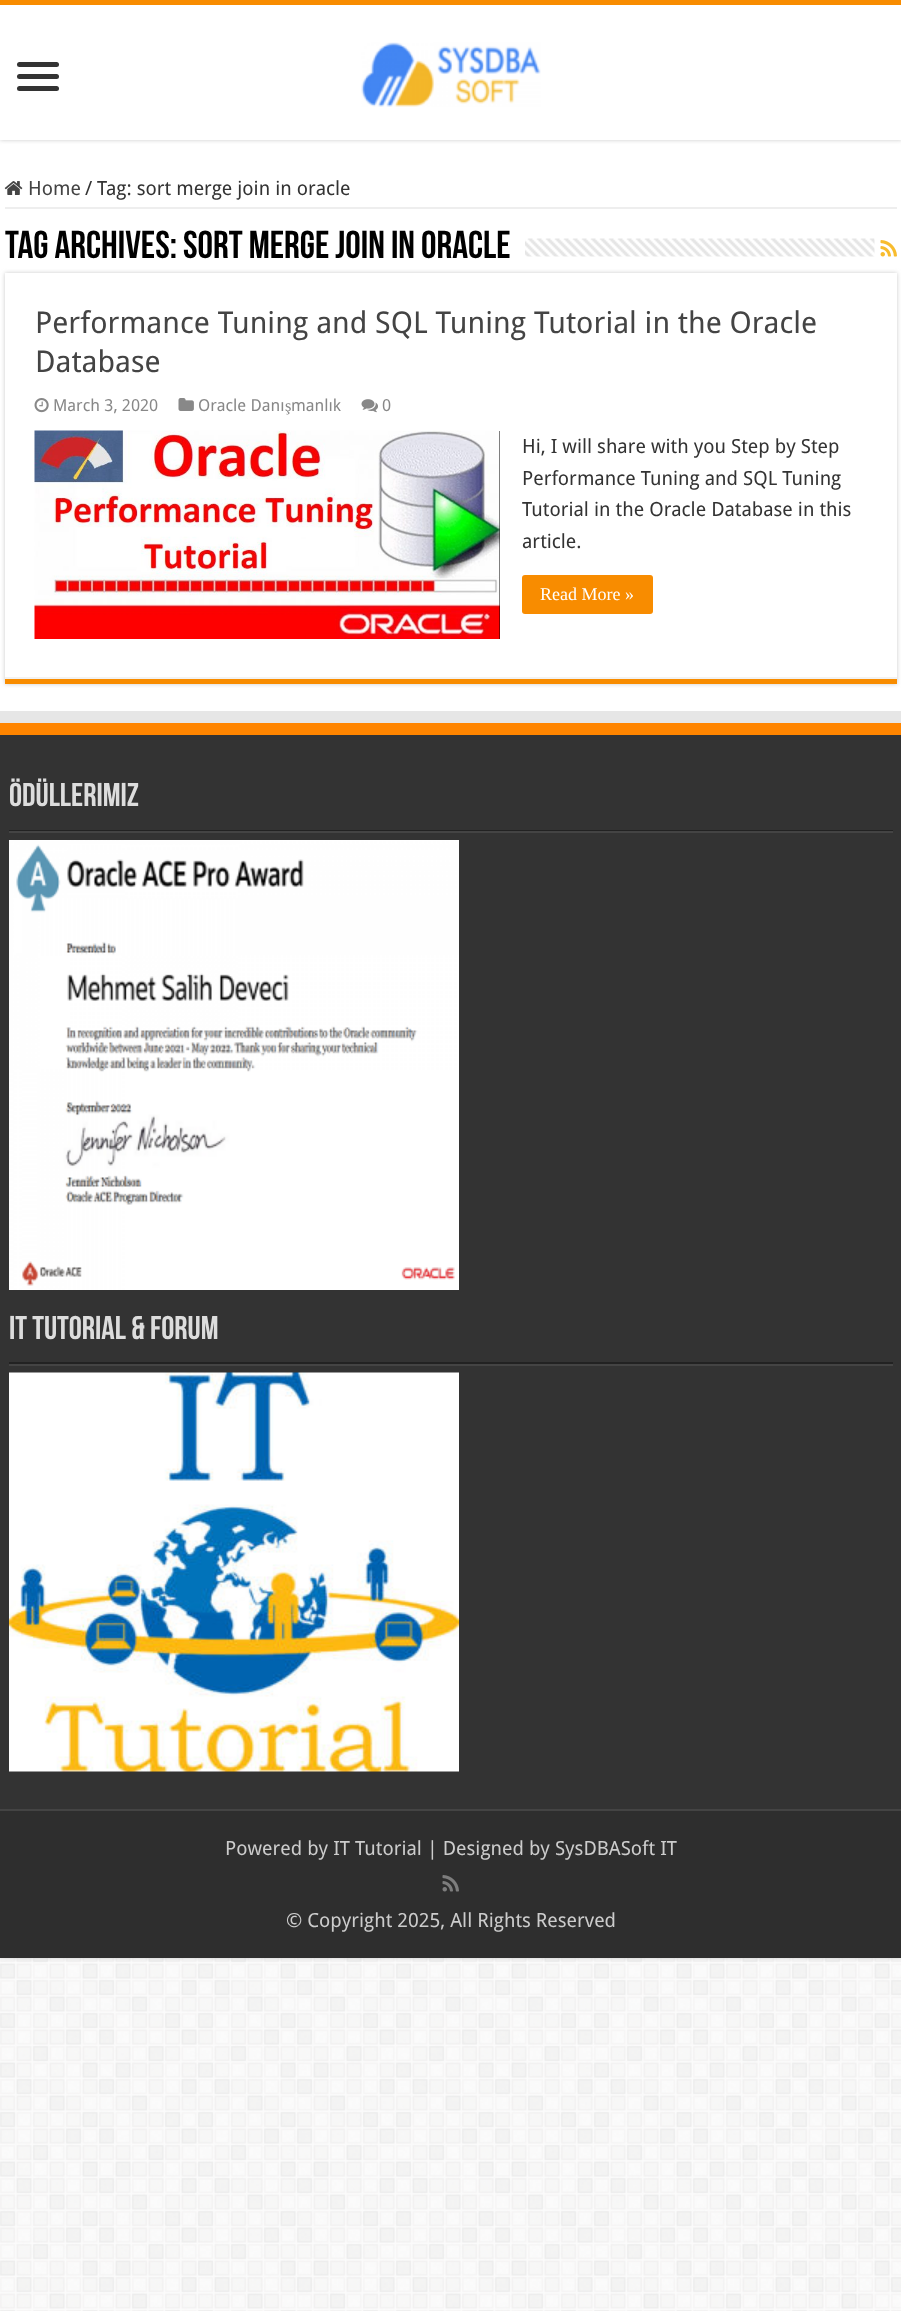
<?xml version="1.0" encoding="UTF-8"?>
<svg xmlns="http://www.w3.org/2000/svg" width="901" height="2311">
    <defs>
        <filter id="blur1" x="-50%" y="-200%" width="200%" height="500%"><feGaussianBlur stdDeviation="2"/></filter>
        <clipPath id="clip1"><rect x="5" y="224" width="892" height="49"/></clipPath>
        <clipPath id="clip2"><path d="M 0 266 H 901 V 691 H 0 Z M 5 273 H 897 V 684 H 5 Z" clip-rule="evenodd"/></clipPath>
    </defs>
    <rect width="100%" height="100%" fill="#FFFFFF"/>
    <image x="0" y="1958" width="901" height="353" href="img_01.png"/>
    <rect x="0" y="0" width="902" height="1958" fill="#CACACA" filter="url(#blur1)"/>
    <rect x="0" y="140" width="901" height="571" fill="#FFFFFF"/>
    <rect x="0" y="0" width="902" height="140" fill="#CACACA" filter="url(#blur1)"/>
    <rect x="0" y="5" width="901" height="135" fill="#FFFFFF"/>
    <rect x="0" y="0" width="901" height="5" fill="#F88C00"/>
    <rect x="17" y="62" width="42" height="5" rx="2.5" fill="#333333"/>
    <rect x="17" y="74" width="42" height="5" rx="2.5" fill="#333333"/>
    <rect x="17" y="86" width="42" height="5" rx="2.5" fill="#333333"/>
    <image x="361" y="42" width="180" height="65" href="img_02.png"/>
    <rect x="5" y="207" width="892" height="2" fill="#EEEEEE"/>
    <image x="4" y="181" width="19" height="14" href="img_03.png"/>
    <text x="28" y="195" font-family="Droid Sans" font-size="19.5" fill="#444444">Home</text>
    <text x="85" y="195" font-family="Droid Sans" font-size="19.5" fill="#333333">/</text>
    <text x="97" y="195" font-family="Droid Sans" font-size="19.5" fill="#333333">Tag: sort merge join in oracle</text>
    <g clip-path="url(#clip1)">
        <text x="5" y="258" font-family="Bebas Neue" font-size="39" font-weight="700" fill="#000000">Tag Archives:</text>
    </g>
    <text x="183" y="258" font-family="Bebas Neue" font-size="39" font-weight="700" fill="#000000">sort merge join in oracle</text>
    <image x="525" y="238" width="350" height="19" href="img_04.png"/>
    <image x="880" y="240" width="17" height="17" href="img_05.png"/>
    <g clip-path="url(#clip2)">
        <rect x="5" y="273" width="892" height="411" fill="#CACACA" filter="url(#blur1)"/>
    </g>
    <rect x="5" y="679" width="892" height="5" fill="#F88C00"/>
    <rect x="5" y="677" width="892" height="2" fill="#F2F2F2"/>
    <text font-family="Droid Sans" font-size="30" fill="#444444">
        <tspan x="35" y="333">Performance Tuning and SQL Tuning Tutorial in the Oracle</tspan>
        <tspan x="35" y="372">Database</tspan>
    </text>
    <image x="34" y="398" width="15" height="15" href="img_06.png"/>
    <text x="53" y="411" font-family="Droid Sans" font-size="16.5" fill="#888888">March 3, 2020</text>
    <image x="178" y="398" width="16" height="13" href="img_07.png"/>
    <text x="198" y="411" font-family="Droid Sans" font-size="16.5" fill="#888888">Oracle Danı</text>
    <text x="285" y="411" font-family="Liberation Serif" font-size="16.5" fill="#888888">ş</text>
    <text x="291" y="411" font-family="Droid Sans" font-size="16.5" fill="#888888">manlık</text>
    <image x="361" y="399" width="17" height="14" href="img_08.png"/>
    <text x="382" y="411" font-family="Droid Sans" font-size="16.5" fill="#888888">0</text>
    <rect x="499" y="431" width="1" height="208" fill="#000000"/>
    <image x="34" y="430" width="466" height="209" href="img_09.png"/>
    <text font-family="Droid Sans" font-size="19.5" fill="#333333">
        <tspan x="522" y="453">Hi, I will share with you Step by Step</tspan>
        <tspan x="522" y="485">Performance Tuning and SQL Tuning</tspan>
        <tspan x="522" y="516">Tutorial in the Oracle Database in this</tspan>
        <tspan x="522" y="548">article.</tspan>
    </text>
    <rect x="522" y="575" width="131" height="39" rx="3" fill="#F88C00"/>
    <text x="540" y="600" font-family="Liberation Serif" font-size="18" fill="#FFFFFF">Read More »</text>
    <path d="M 0 711 V 723 H 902 V 1797 V 711 Z" fill="#E6E6E6"/>
    <rect x="0" y="735" width="901" height="1074" fill="#333333"/>
    <rect x="0" y="723" width="901" height="12" fill="#FF8500"/>
    <rect x="9" y="830" width="884" height="1" fill="#222222"/>
    <text x="9" y="806" font-family="Bebas Neue" font-size="33" font-weight="700" fill="#DDDDDD">Ödüllerimiz</text>
    <rect x="9" y="831" width="884" height="2" fill="#444444"/>
    <image x="9" y="840" width="450" height="450" href="img_10.png"/>
    <rect x="9" y="1362" width="884" height="2" fill="#222222"/>
    <text x="9" y="1339" font-family="Bebas Neue" font-size="33" font-weight="700" fill="#DDDDDD">IT Tutorial &amp; Forum</text>
    <rect x="9" y="1364" width="884" height="2" fill="#444444"/>
    <image x="9" y="1372" width="450" height="400" href="img_11.png"/>
    <rect x="0" y="1811" width="901" height="147" fill="#2E2E2E"/>
    <rect x="0" y="1809" width="901" height="2" fill="#444444"/>
    <text x="225" y="1855" font-family="Droid Sans" font-size="19.5" fill="#CCCCCC">Powered by IT Tutorial | Designed by SysDBASoft IT</text>
    <image x="442" y="1875" width="17" height="17" href="img_12.png"/>
    <text x="286" y="1927" font-family="Droid Sans" font-size="19.5" fill="#CCCCCC">© Copyright 2025, All Rights Reserved</text>
</svg>
